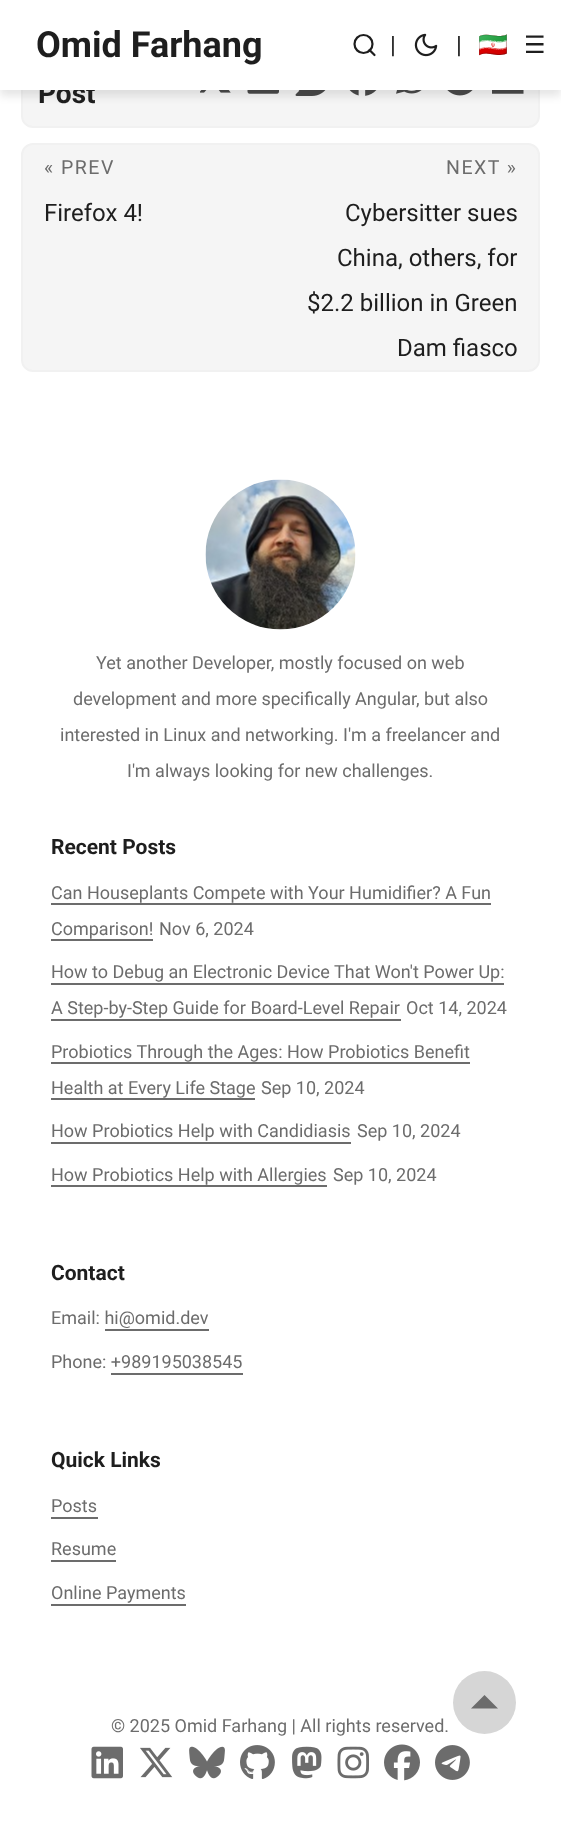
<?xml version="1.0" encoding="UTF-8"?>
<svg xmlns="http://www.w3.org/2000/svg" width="561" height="1824">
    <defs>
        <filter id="blur1" x="-50%" y="-200%" width="200%" height="500%"><feGaussianBlur stdDeviation="4.5"/></filter>
    </defs>
    <rect width="100%" height="100%" fill="#FFFFFF"/>
    <rect x="22" y="28" width="517" height="99" rx="11" fill="#F5F5F5" stroke="#F1F1F1" stroke-width="2"/>
    <image x="200" y="90" width="31" height="3" href="img_02.png"/>
    <image x="247" y="90" width="32" height="4" href="img_03.png"/>
    <image x="295" y="90" width="31" height="6" href="img_04.png"/>
    <image x="349" y="90" width="28" height="6" href="img_05.png"/>
    <image x="396" y="90" width="26" height="4" href="img_06.png"/>
    <image x="447" y="90" width="26" height="6" href="img_07.png"/>
    <image x="492" y="90" width="32" height="4" href="img_08.png"/>
    <rect x="0" y="6" width="561" height="90" fill="#000000" fill-opacity="0.1" filter="url(#blur1)"/>
    <text x="38" y="103" font-family="Roboto" font-size="28" font-weight="700" fill="#1E1E1E">Post</text>
    <rect x="0" y="0" width="561" height="90" fill="#FFFFFF"/>
    <text x="36" y="57" font-family="Roboto" font-size="36" font-weight="700" fill="#1E1E1E">Omid Farhang</text>
    <circle cx="363.5" cy="44" r="9" fill="none" stroke="#1E1E1E" stroke-width="2.2"/>
    <path d="M 374.5 55 L 369.5 50" fill="none" stroke="#1E1E1E" stroke-width="2.2" stroke-linecap="round" stroke-linejoin="round"/>
    <text x="390" y="53" font-family="Roboto" font-size="24" fill="#1E1E1E">|</text>
    <image x="414" y="33" width="24" height="24" href="img_01.png"/>
    <text x="456" y="53" font-family="Roboto" font-size="24" fill="#1E1E1E">|</text>
    <text x="478" y="53" font-family="Noto Color Emoji" font-size="24" fill="#1E1E1E">🇮🇷</text>
    <text x="524" y="53" font-family="DejaVu Sans" font-size="24" fill="#1E1E1E">☰</text>
    <rect x="22" y="144" width="517" height="227" rx="11" fill="#F5F5F5" stroke="#F1F1F1" stroke-width="2"/>
    <text x="44" y="174" font-family="Roboto" font-size="19.5" letter-spacing="1.5" fill="#6C6C6C">« PREV</text>
    <text x="44" y="221" font-family="Roboto" font-size="24" fill="#1E1E1E">Firefox 4!</text>
    <text x="446" y="174" font-family="Roboto" font-size="19.5" letter-spacing="1.5" fill="#6C6C6C">NEXT »</text>
    <text x="345" y="221" font-family="Roboto" font-size="24" fill="#1E1E1E">Cybersitter sues</text>
    <text x="337" y="266" font-family="Roboto" font-size="24" fill="#1E1E1E">China, others, for</text>
    <text x="307" y="311" font-family="Roboto" font-size="24" fill="#1E1E1E">$2.2 billion in Green</text>
    <text x="397" y="356" font-family="Roboto" font-size="24" fill="#1E1E1E">Dam fiasco</text>
    <image x="205" y="479" width="151" height="151" href="img_09.png"/>
    <text x="96" y="669" font-family="Roboto" font-size="18" fill="#6C6C6C">Yet another Developer, mostly focused on web</text>
    <text x="73" y="705" font-family="Roboto" font-size="18" fill="#6C6C6C">development and more specifically Angular, but also</text>
    <text x="60" y="741" font-family="Roboto" font-size="18" fill="#6C6C6C">interested in Linux and networking. I'm a freelancer and</text>
    <text x="127" y="777" font-family="Roboto" font-size="18" fill="#6C6C6C">I'm always looking for new challenges.</text>
    <text x="51" y="854" font-family="Roboto" font-size="21" font-weight="700" fill="#1E1E1E">Recent Posts</text>
    <text x="51" y="899" font-family="Roboto" font-size="18" fill="#6C6C6C">Can Houseplants Compete with Your Humidifier? A Fun</text>
    <rect x="51" y="903" width="440" height="2" fill="#6C6C6C"/>
    <text x="51" y="935" font-family="Roboto" font-size="18" fill="#6C6C6C">Comparison!</text>
    <rect x="51" y="939" width="102" height="2" fill="#6C6C6C"/>
    <text x="159" y="935" font-family="Roboto" font-size="18" fill="#6C6C6C">Nov 6, 2024</text>
    <text x="51" y="978" font-family="Roboto" font-size="18" fill="#6C6C6C">How to Debug an Electronic Device That Won't Power Up:</text>
    <rect x="51" y="983" width="453" height="2" fill="#6C6C6C"/>
    <text x="51" y="1014" font-family="Roboto" font-size="18" fill="#6C6C6C">A Step-by-Step Guide for Board-Level Repair</text>
    <rect x="51" y="1019" width="350" height="2" fill="#6C6C6C"/>
    <text x="406" y="1014" font-family="Roboto" font-size="18" fill="#6C6C6C">Oct 14, 2024</text>
    <text x="51" y="1058" font-family="Roboto" font-size="18" fill="#6C6C6C">Probiotics Through the Ages: How Probiotics Benefit</text>
    <rect x="51" y="1062" width="419" height="2" fill="#6C6C6C"/>
    <text x="51" y="1094" font-family="Roboto" font-size="18" fill="#6C6C6C">Health at Every Life Stage</text>
    <rect x="51" y="1098" width="204" height="2" fill="#6C6C6C"/>
    <text x="261" y="1094" font-family="Roboto" font-size="18" fill="#6C6C6C">Sep 10, 2024</text>
    <text x="51" y="1137" font-family="Roboto" font-size="18" fill="#6C6C6C">How Probiotics Help with Candidiasis</text>
    <rect x="51" y="1142" width="300" height="2" fill="#6C6C6C"/>
    <text x="357" y="1137" font-family="Roboto" font-size="18" fill="#6C6C6C">Sep 10, 2024</text>
    <text x="51" y="1181" font-family="Roboto" font-size="18" fill="#6C6C6C">How Probiotics Help with Allergies</text>
    <rect x="51" y="1185" width="276" height="2" fill="#6C6C6C"/>
    <text x="333" y="1181" font-family="Roboto" font-size="18" fill="#6C6C6C">Sep 10, 2024</text>
    <text x="51" y="1280" font-family="Roboto" font-size="21" font-weight="700" fill="#1E1E1E">Contact</text>
    <text x="51" y="1324" font-family="Roboto" font-size="18" fill="#6C6C6C">Email: hi@omid.dev</text>
    <rect x="105" y="1329" width="104" height="2" fill="#6C6C6C"/>
    <text x="51" y="1368" font-family="Roboto" font-size="18" fill="#6C6C6C">Phone: +989195038545</text>
    <rect x="111" y="1373" width="132" height="2" fill="#6C6C6C"/>
    <text x="51" y="1467" font-family="Roboto" font-size="21" font-weight="700" fill="#1E1E1E">Quick Links</text>
    <text x="51" y="1512" font-family="Roboto" font-size="18" fill="#6C6C6C">Posts</text>
    <rect x="51" y="1517" width="47" height="2" fill="#6C6C6C"/>
    <text x="51" y="1555" font-family="Roboto" font-size="18" fill="#6C6C6C">Resume</text>
    <rect x="51" y="1560" width="65" height="2" fill="#6C6C6C"/>
    <text x="51" y="1599" font-family="Roboto" font-size="18" fill="#6C6C6C">Online Payments</text>
    <rect x="51" y="1604" width="135" height="2" fill="#6C6C6C"/>
    <text x="111" y="1732" font-family="Roboto" font-size="18" fill="#6C6C6C">© 2025 Omid Farhang | All rights reserved.</text>
    <image x="91" y="1746" width="32" height="33" href="img_10.png"/>
    <image x="140" y="1747" width="33" height="31" href="img_11.png"/>
    <image x="189" y="1746" width="36" height="33" href="img_12.png"/>
    <image x="240" y="1745" width="35" height="34" href="img_13.png"/>
    <image x="292" y="1746" width="30" height="33" href="img_14.png"/>
    <image x="337" y="1746" width="32" height="33" href="img_15.png"/>
    <image x="384" y="1744" width="36" height="37" href="img_16.png"/>
    <image x="435" y="1745" width="35" height="35" href="img_17.png"/>
    <circle cx="484.5" cy="1702.5" r="31.5" fill="#D6D6D6"/>
    <path d="M 498 1708.5 H 471 L 484.5 1695 Z" fill="#6C6C6C"/>
</svg>
